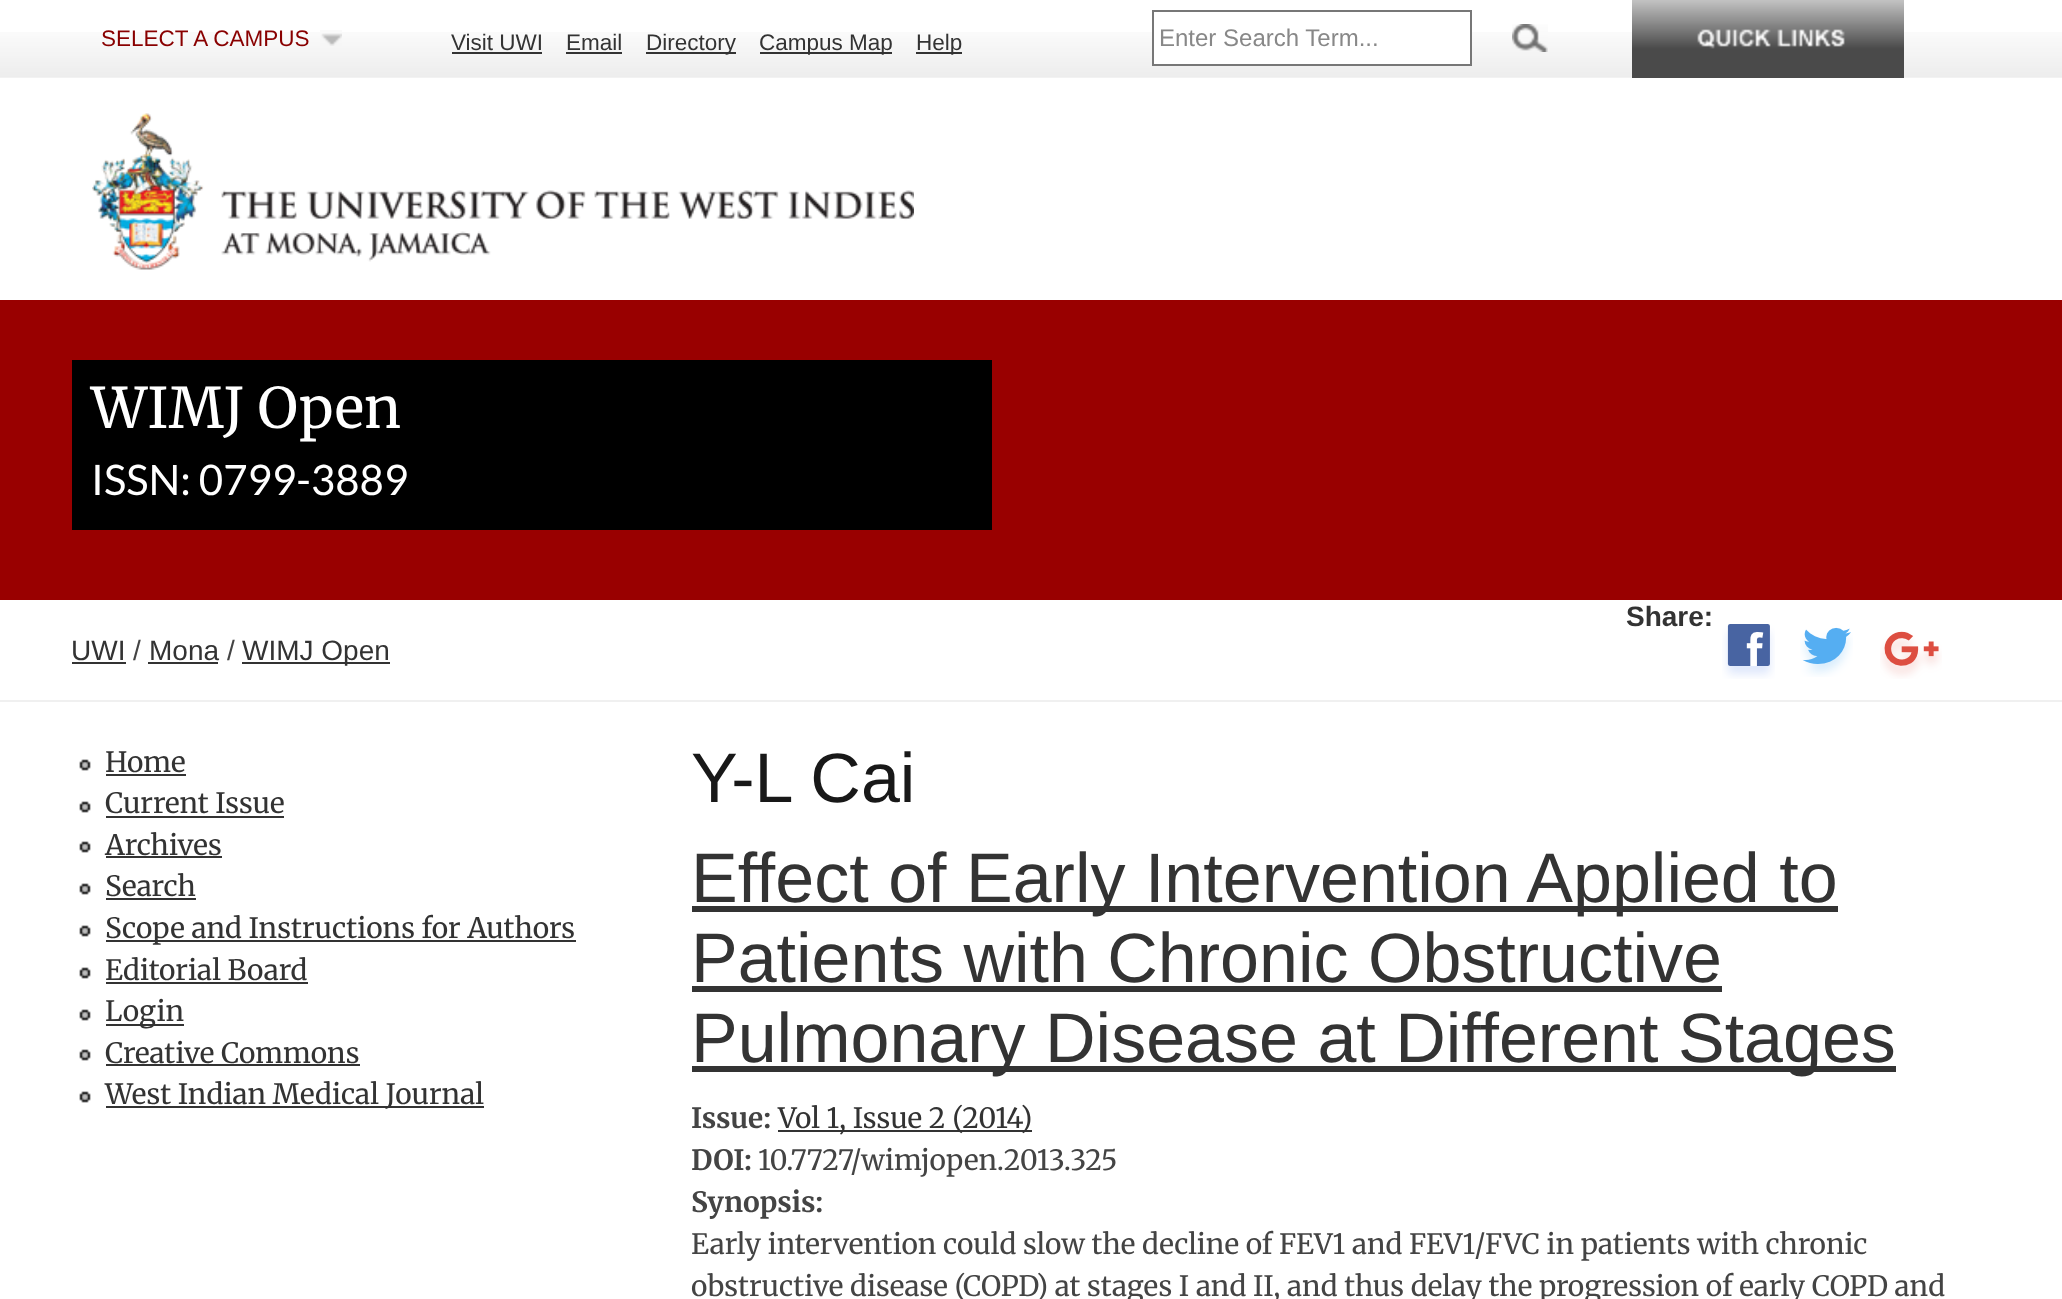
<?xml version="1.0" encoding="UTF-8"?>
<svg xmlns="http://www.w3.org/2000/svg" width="2062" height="1299">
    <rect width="100%" height="100%" fill="#FFFFFF"/>
    <image x="0" y="32" width="2062" height="46" href="img_01.png"/>
    <image x="320" y="30" width="22" height="16" href="img_02.png"/>
    <text x="101" y="46" font-family="Liberation Sans" font-size="22.5" fill="#890000">SELECT A CAMPUS</text>
    <text x="451" y="50" font-family="Liberation Sans" font-size="22.5" fill="#333333">Visit UWI</text>
    <rect x="452" y="52" width="90" height="2" fill="#333333"/>
    <text x="566" y="50" font-family="Liberation Sans" font-size="22.5" fill="#333333">Email</text>
    <rect x="566" y="52" width="56" height="2" fill="#333333"/>
    <rect x="646" y="52" width="90" height="2" fill="#333333"/>
    <text x="646" y="50" font-family="Liberation Sans" font-size="22.5" fill="#333333">Directory</text>
    <rect x="760" y="52" width="132" height="2" fill="#333333"/>
    <text x="759" y="50" font-family="Liberation Sans" font-size="22.5" fill="#333333">Campus Map</text>
    <rect x="916" y="52" width="46" height="2" fill="#333333"/>
    <text x="916" y="50" font-family="Liberation Sans" font-size="22.5" fill="#333333">Help</text>
    <rect x="1154" y="32" width="316" height="32" fill="#FFFFFF"/>
    <rect x="1153" y="11" width="318" height="54" fill="none" stroke="#777777" stroke-width="2"/>
    <text x="1159" y="46" font-family="Liberation Sans" font-size="24" fill="#888888">Enter Search Term...</text>
    <image x="1512" y="24" width="36" height="28" href="img_03.png"/>
    <image x="1632" y="0" width="272" height="78" href="img_04.png"/>
    <image x="92" y="113" width="822" height="157" href="img_05.png"/>
    <rect x="0" y="300" width="2062" height="300" fill="#990000"/>
    <rect x="72" y="360" width="920" height="170" fill="#000000"/>
    <text x="91" y="428" font-family="Merriweather" font-size="56" fill="#FFFFFF">WIMJ Open</text>
    <text x="91" y="495" font-family="Lato" font-size="42" fill="#FFFFFF">ISSN: 0799-3889</text>
    <rect x="0" y="700" width="2062" height="2" fill="#F0F0F0"/>
    <text x="1626" y="626" font-family="Liberation Sans" font-size="28" font-weight="700" fill="#333333">Share:</text>
    <image x="1722" y="624" width="53" height="55" href="img_06.png"/>
    <image x="1800" y="627" width="53" height="50" href="img_07.png"/>
    <image x="1880" y="631" width="62" height="48" href="img_08.png"/>
    <text x="71" y="660" font-family="Liberation Sans" font-size="28" fill="#333333">UWI</text>
    <rect x="72" y="662" width="54" height="2" fill="#333333"/>
    <text x="133" y="660" font-family="Liberation Sans" font-size="28" fill="#444444">/</text>
    <text x="149" y="660" font-family="Liberation Sans" font-size="28" fill="#333333">Mona</text>
    <rect x="148" y="662" width="70" height="2" fill="#333333"/>
    <text x="227" y="660" font-family="Liberation Sans" font-size="28" fill="#444444">/</text>
    <rect x="242" y="662" width="148" height="2" fill="#333333"/>
    <text x="242" y="660" font-family="Liberation Sans" font-size="28" fill="#333333">WIMJ Open</text>
    <image x="79" y="759" width="12" height="12" href="img_09.png"/>
    <text x="105" y="772" font-family="Merriweather" font-size="28" fill="#333333">Home</text>
    <rect x="106" y="774" width="80" height="2" fill="#333333"/>
    <image x="79" y="801" width="12" height="12" href="img_09.png"/>
    <text x="105" y="813" font-family="Merriweather" font-size="28" fill="#333333">Current Issue</text>
    <rect x="106" y="816" width="178" height="2" fill="#333333"/>
    <image x="79" y="841" width="12" height="12" href="img_09.png"/>
    <text x="105" y="855" font-family="Merriweather" font-size="28" fill="#333333">Archives</text>
    <rect x="106" y="856" width="116" height="2" fill="#333333"/>
    <image x="79" y="883" width="12" height="12" href="img_09.png"/>
    <text x="105" y="896" font-family="Merriweather" font-size="28" fill="#333333">Search</text>
    <rect x="106" y="898" width="90" height="2" fill="#333333"/>
    <image x="79" y="925" width="12" height="12" href="img_09.png"/>
    <rect x="106" y="940" width="470" height="2" fill="#333333"/>
    <text x="105" y="938" font-family="Merriweather" font-size="28" fill="#333333">Scope and Instructions for Authors</text>
    <image x="79" y="967" width="12" height="12" href="img_09.png"/>
    <text x="105" y="980" font-family="Merriweather" font-size="28" fill="#333333">Editorial Board</text>
    <rect x="106" y="982" width="202" height="2" fill="#333333"/>
    <image x="79" y="1009" width="12" height="12" href="img_09.png"/>
    <rect x="106" y="1024" width="78" height="2" fill="#333333"/>
    <text x="105" y="1021" font-family="Merriweather" font-size="28" fill="#333333">Login</text>
    <image x="79" y="1049" width="12" height="12" href="img_09.png"/>
    <text x="105" y="1063" font-family="Merriweather" font-size="28" fill="#333333">Creative Commons</text>
    <rect x="106" y="1064" width="254" height="2" fill="#333333"/>
    <image x="79" y="1091" width="12" height="12" href="img_09.png"/>
    <rect x="106" y="1106" width="378" height="2" fill="#333333"/>
    <text x="105" y="1104" font-family="Merriweather" font-size="28" fill="#333333">West Indian Medical Journal</text>
    <text x="691" y="802" font-family="Liberation Sans" font-size="70" fill="#181818">Y-L Cai</text>
    <rect x="692" y="906" width="1146" height="6" fill="#333333"/>
    <text font-family="Liberation Sans" font-size="70" fill="#333333">
        <tspan x="691" y="902">Effect of Early Intervention Applied to</tspan>
        <tspan x="691" y="982">Patients with Chronic Obstructive</tspan>
    </text>
    <rect x="692" y="986" width="1030" height="6" fill="#333333"/>
    <rect x="692" y="1066" width="1204" height="6" fill="#333333"/>
    <text x="691" y="1062" font-family="Liberation Sans" font-size="70" fill="#333333">Pulmonary Disease at Different Stages</text>
    <text x="691" y="1128" font-family="Merriweather" font-size="28" font-weight="700" fill="#444444">Issue:</text>
    <rect x="778" y="1130" width="254" height="2" fill="#333333"/>
    <text x="778" y="1128" font-family="Merriweather" font-size="28" fill="#333333">Vol 1, Issue 2 (2014)</text>
    <text x="691" y="1170" font-family="Merriweather" font-size="28" font-weight="700" fill="#444444">DOI:</text>
    <text x="758" y="1170" font-family="Merriweather" font-size="28" fill="#444444">10.7727/wimjopen.2013.325</text>
    <text x="691" y="1212" font-family="Merriweather" font-size="28" font-weight="700" fill="#444444">Synopsis:</text>
    <text font-family="Merriweather" font-size="28" fill="#444444">
        <tspan x="691" y="1254">Early intervention could slow the decline of FEV1 and FEV1/FVC in patients with chronic</tspan>
        <tspan x="691" y="1296">obstructive disease (COPD) at stages I and II, and thus delay the progression of early COPD and</tspan>
    </text>
</svg>
